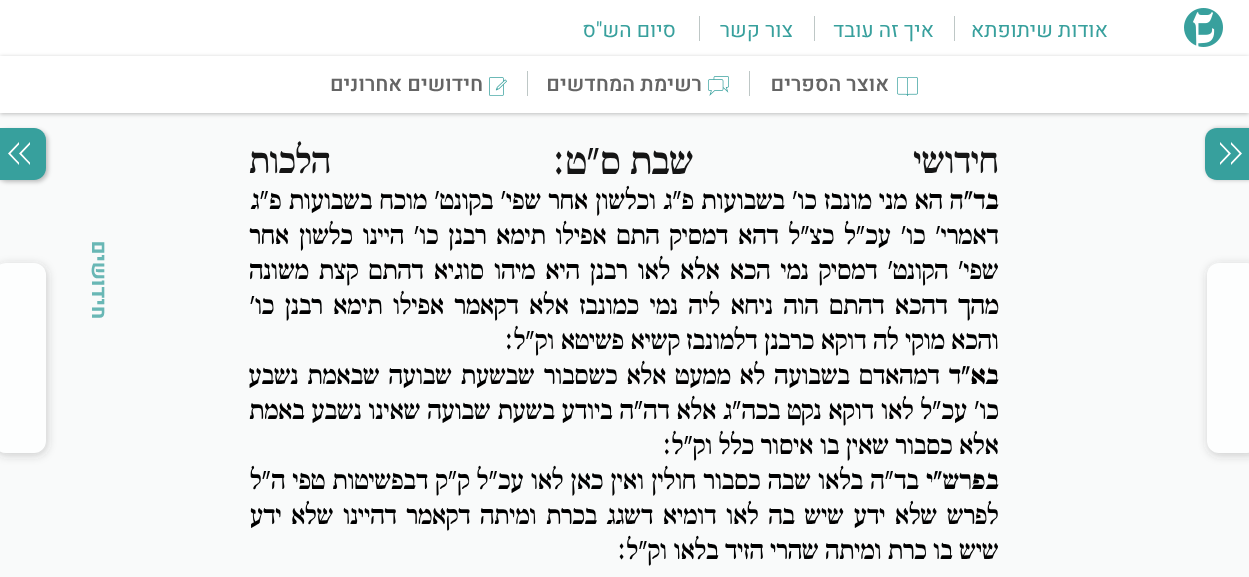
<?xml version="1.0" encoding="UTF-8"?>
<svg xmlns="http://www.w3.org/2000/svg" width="1249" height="577">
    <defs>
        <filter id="blur1" x="-50%" y="-200%" width="200%" height="500%"><feGaussianBlur stdDeviation="2"/></filter>
        <filter id="blur2" x="-50%" y="-200%" width="200%" height="500%"><feGaussianBlur stdDeviation="5"/></filter>
    </defs>
    <rect width="100%" height="100%" fill="#FFFFFF"/>
    <image x="1184" y="8" width="39" height="39" href="img_01.png"/>
    <text x="1108" y="37" font-family="Heebo" font-size="21" direction="rtl" fill="#38A09D">אודות שיתופתא</text>
    <rect x="954" y="16" width="1" height="25" fill="#BEC7C6"/>
    <text x="934" y="37" font-family="Heebo" font-size="21" direction="rtl" fill="#38A09D">איך זה עובד</text>
    <rect x="814" y="16" width="1" height="25" fill="#BEC7C6"/>
    <text x="793" y="37" font-family="Heebo" font-size="21" direction="rtl" fill="#38A09D">צור קשר</text>
    <rect x="699" y="16" width="1" height="25" fill="#BEC7C6"/>
    <text x="676" y="37" font-family="Heebo" font-size="21" direction="rtl" fill="#38A09D">סיום הש"ס</text>
    <rect x="0" y="113" width="1249" height="464" fill="#F9FAFA"/>
    <rect x="0" y="57" width="1249" height="57" fill="#000000" fill-opacity="0.25" filter="url(#blur1)"/>
    <rect x="0" y="56" width="1249" height="57" fill="#FFFFFF"/>
    <image x="897" y="77" width="21" height="19" href="img_02.png"/>
    <text x="889" y="91" font-family="Heebo" font-size="21" font-weight="500" direction="rtl" fill="#656565">אוצר הספרים</text>
    <rect x="749" y="71" width="1" height="25" fill="#BEC7C6"/>
    <image x="708" y="76" width="21" height="20" href="img_03.png"/>
    <text x="702" y="91" font-family="Heebo" font-size="21" font-weight="500" direction="rtl" fill="#656565">רשימת המחדשים</text>
    <rect x="527" y="71" width="1" height="25" fill="#BEC7C6"/>
    <image x="489" y="77" width="18" height="19" href="img_04.png"/>
    <text x="483" y="91" font-family="Heebo" font-size="21" font-weight="500" direction="rtl" fill="#656565">חידושים אחרונים</text>
    <rect x="1206" y="128" width="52" height="52" rx="12" fill="#000000" fill-opacity="0.25" filter="url(#blur1)"/>
    <path d="M 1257 180 H 1217 C 1210 180 1205 175 1205 168 V 140 C 1205 133 1210 128 1217 128 H 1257 Z" fill="#37A09D"/>
    <path d="M 1223 147.5 L 1228.5 153.5 L 1220 162.5 V 165 L 1231 153.5 L 1220 142 V 144.5 Z M 1234 147.5 L 1239.5 153.5 L 1231 162.5 V 165 L 1242 153.5 L 1231 142 V 144.5 Z" fill="#FFFFFF"/>
    <rect x="1208" y="265" width="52" height="190" rx="12" fill="#414141" fill-opacity="0.25" filter="url(#blur2)"/>
    <rect x="1207" y="263" width="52" height="190" rx="12" fill="#FDFEFE"/>
    <text x="1312" y="397" transform="rotate(-90 1312 397)" font-family="Heebo" font-size="21" font-weight="700" direction="rtl" fill="#69B7B5">מפרשים</text>
    <text x="999" y="173" font-family="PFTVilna" font-size="35" direction="rtl" fill="#151515">חידושי</text>
    <text x="694" y="174" font-family="PFTVilna" font-size="37" direction="rtl" fill="#151515">שבת</text>
    <text x="621" y="174" font-family="PFTVilna" font-size="37" direction="rtl" fill="#151515">ס״ט</text>
    <text x="555" y="174" font-family="PFTVilna" font-size="37" fill="#151515">:</text>
    <text x="331" y="173" font-family="PFTVilna" font-size="35" direction="rtl" fill="#151515">הלכות</text>
    <text x="999" y="209" font-family="PFTVilna" font-size="25.6" font-weight="700" direction="rtl" fill="#000000">בד"ה</text>
    <text x="943" y="209" word-spacing="0.8" font-family="PFTVilna" font-size="25.6" direction="rtl" fill="#000000">הא מני מונבז כו' בשבועות פ"ג וכלשון אחר שפי' בקונט' מוכח בשבועות פ"ג</text>
    <text font-family="PFTVilna" font-size="25.6" direction="rtl" fill="#000000">
        <tspan x="999" y="244" word-spacing="3.4">דאמרי' כו' עכ"ל כצ"ל דהא דמסיק התם אפילו תימא רבנן כו' היינו כלשון אחר</tspan>
        <tspan x="999" y="279" word-spacing="3.5">שפי' הקונט' דמסיק נמי הכא אלא לאו רבנן היא מיהו סוגיא דהתם קצת משונה</tspan>
        <tspan x="999" y="314" word-spacing="4">מהך דהכא דהתם הוה ניחא ליה נמי כמונבז אלא דקאמר אפילו תימא רבנן כו'</tspan>
        <tspan x="999" y="349">והכא מוקי לה דוקא כרבנן דלמונבז קשיא פשיטא וק"ל:</tspan>
    </text>
    <text x="999" y="384" font-family="PFTVilna" font-size="25.6" font-weight="700" direction="rtl" fill="#000000">בא"ד</text>
    <text x="940" y="384" word-spacing="2.5" font-family="PFTVilna" font-size="25.6" direction="rtl" fill="#000000">דמהאדם בשבועה לא ממעט אלא כשסבור שבשעת שבועה שבאמת נשבע</text>
    <text font-family="PFTVilna" font-size="25.6" direction="rtl" fill="#000000">
        <tspan x="999" y="419" word-spacing="0.4">כו' עכ"ל לאו דוקא נקט בכה"ג אלא דה"ה ביודע בשעת שבועה שאינו נשבע באמת</tspan>
        <tspan x="999" y="454">אלא כסבור שאין בו איסור כלל וק"ל:</tspan>
    </text>
    <text x="999" y="489" font-family="PFTVilna" font-size="25.6" font-weight="700" direction="rtl" fill="#000000">בפרש"י</text>
    <text x="919" y="489" word-spacing="0.75" font-family="PFTVilna" font-size="25.6" direction="rtl" fill="#000000">בד"ה בלאו שבה כסבור חולין ואין כאן לאו עכ"ל ק"ק דבפשיטות טפי ה"ל</text>
    <text font-family="PFTVilna" font-size="25.6" direction="rtl" fill="#000000">
        <tspan x="999" y="524" word-spacing="3.1">לפרש שלא ידע שיש בה לאו דומיא דשגג בכרת ומיתה דקאמר דהיינו שלא ידע</tspan>
        <tspan x="999" y="559">שיש בו כרת ומיתה שהרי הזיד בלאו וק"ל:</tspan>
    </text>
    <rect x="-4" y="130" width="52" height="52" rx="12" fill="#000000" fill-opacity="0.25" filter="url(#blur1)"/>
    <path d="M -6 128 H 34 C 40.5 128 46 133.5 46 140 V 168 C 46 174.5 40.5 180 34 180 H -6 Z" fill="#37A09D"/>
    <path d="M 27 159.5 L 21.5 153.5 L 30 144.5 V 142 L 19 153.5 L 30 165 V 162.5 Z M 16 159.5 L 10.5 153.5 L 19 144.5 V 142 L 8 153.5 L 19 165 V 162.5 Z" fill="#FFFFFF"/>
    <rect x="-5" y="265" width="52" height="190" rx="12" fill="#414141" fill-opacity="0.25" filter="url(#blur2)"/>
    <rect x="-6" y="263" width="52" height="190" rx="12" fill="#FDFEFE"/>
    <text x="92" y="319" transform="rotate(90 92 319)" font-family="Heebo" font-size="21" font-weight="700" direction="rtl" fill="#69B7B5">חידושים</text>
</svg>
